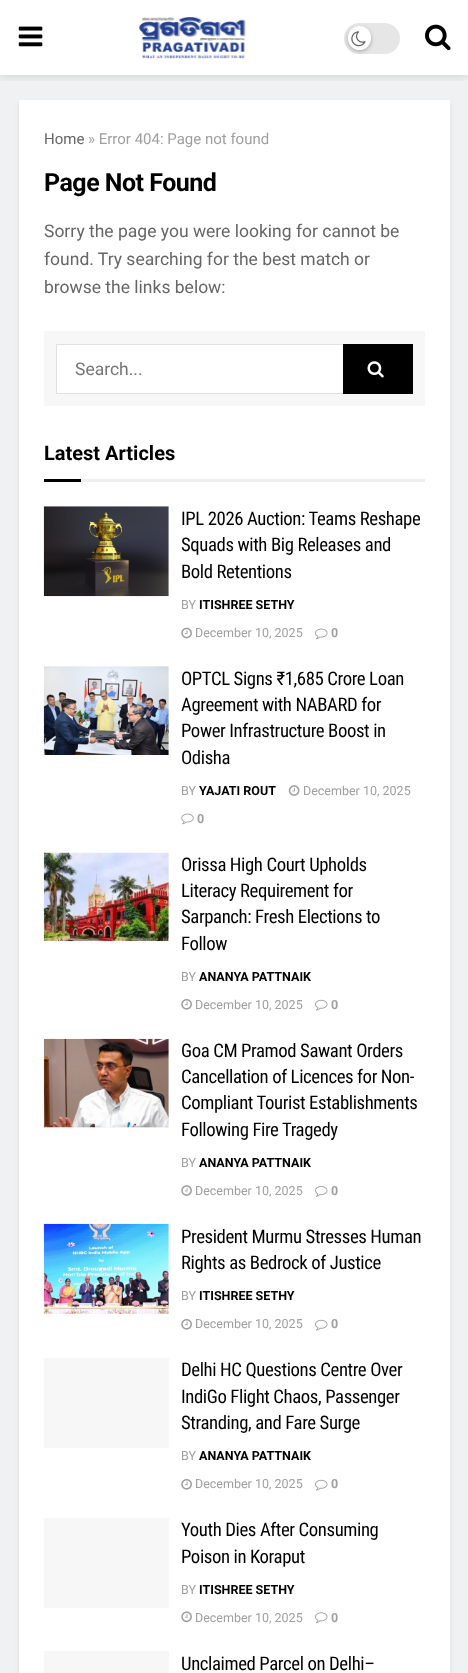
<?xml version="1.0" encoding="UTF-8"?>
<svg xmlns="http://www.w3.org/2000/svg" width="468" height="1673">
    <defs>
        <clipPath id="clip1"><rect x="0" y="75" width="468" height="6"/></clipPath>
        <filter id="blur1" x="-50%" y="-200%" width="200%" height="500%"><feGaussianBlur stdDeviation="4"/></filter>
        <filter id="blur2" x="-50%" y="-200%" width="200%" height="500%"><feGaussianBlur stdDeviation="2"/></filter>
        <filter id="blur3" x="-50%" y="-200%" width="200%" height="500%"><feGaussianBlur stdDeviation="2.5"/></filter>
    </defs>
    <rect width="100%" height="100%" fill="#FFFFFF"/>
    <rect x="0" y="75" width="468" height="1598" fill="#F0F1F2"/>
    <g clip-path="url(#clip1)">
        <rect x="0" y="3" width="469" height="75" fill="#000000" fill-opacity="0.1" filter="url(#blur1)"/>
    </g>
    <image x="18" y="26" width="25" height="21" href="img_01.png"/>
    <image x="138" y="17" width="108" height="42" href="img_02.png"/>
    <rect x="344" y="23" width="56" height="31" rx="15.5" fill="#E6E6E6"/>
    <rect x="348" y="28" width="23" height="23" rx="11.5" fill="#000000" fill-opacity="0.3" filter="url(#blur2)"/>
    <rect x="348" y="26" width="23" height="24" rx="11.5" fill="#FFFFFF"/>
    <image x="351" y="31" width="15" height="16" href="img_03.png"/>
    <image x="425" y="24" width="26" height="27" href="img_04.png"/>
    <rect x="19" y="103" width="431" height="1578" fill="#000000" fill-opacity="0.08" filter="url(#blur3)"/>
    <rect x="19" y="100" width="431" height="1573" fill="#FFFFFF"/>
    <text x="44" y="144" font-family="Roboto" font-size="15" fill="#666666">Home</text>
    <text x="88" y="144" font-family="Roboto" font-size="15" fill="#A0A0A0">» Error 404: Page not found</text>
    <text x="44" y="191" font-family="Roboto" font-size="25" font-weight="700" letter-spacing="-0.5" fill="#000000">Page Not Found</text>
    <text font-family="Roboto" font-size="17.5" fill="#666666">
        <tspan x="44" y="237">Sorry the page you were looking for cannot be</tspan>
        <tspan x="44" y="265">found. Try searching for the best match or</tspan>
        <tspan x="44" y="293">browse the links below:</tspan>
    </text>
    <rect x="44" y="331" width="381" height="75" fill="#F7F7F7"/>
    <rect x="57" y="345" width="286" height="48" fill="#FFFFFF"/>
    <rect x="56.5" y="344.5" width="356" height="49" fill="none" stroke="#E0E0E0"/>
    <text x="75" y="375" font-family="Roboto" font-size="17.5" fill="#757575">Search...</text>
    <rect x="343" y="344" width="70" height="50" fill="#000000"/>
    <image x="367" y="361" width="17" height="17" href="img_05.png"/>
    <rect x="81" y="479" width="344" height="3" fill="#EEEEEE"/>
    <text x="44" y="460" font-family="Roboto" font-size="20" font-weight="700" fill="#000000">Latest Articles</text>
    <rect x="44" y="479" width="37" height="3" fill="#000000"/>
    <rect x="44" y="506" width="125" height="90" fill="#F7F7F7"/>
    <image x="43" y="506" width="126" height="91" href="img_06.png"/>
    <text font-family="Roboto Condensed" font-size="18.75" letter-spacing="-0.4" fill="#000000">
        <tspan x="181" y="525">IPL 2026 Auction: Teams Reshape</tspan>
        <tspan x="181" y="551">Squads with Big Releases and</tspan>
        <tspan x="181" y="578">Bold Retentions</tspan>
    </text>
    <text x="181" y="609" font-family="Roboto" font-size="12.5" fill="#A0A0A0">BY</text>
    <text x="199" y="609" font-family="Roboto" font-size="12.5" font-weight="700" fill="#000000">ITISHREE SETHY</text>
    <image x="181" y="627" width="11" height="12" href="img_07.png"/>
    <text x="195" y="637" font-family="Roboto" font-size="12.5" fill="#A0A0A0">December 10, 2025</text>
    <image x="315" y="628" width="13" height="12" href="img_08.png"/>
    <text x="331" y="637" font-family="Roboto" font-size="12.5" font-weight="700" fill="#A0A0A0">0</text>
    <rect x="44" y="666" width="125" height="89" fill="#F7F7F7"/>
    <image x="43" y="666" width="126" height="89" href="img_09.png"/>
    <text font-family="Roboto Condensed" font-size="18.75" letter-spacing="-0.4" fill="#000000">
        <tspan x="181" y="685">OPTCL Signs ₹1,685 Crore Loan</tspan>
        <tspan x="181" y="711">Agreement with NABARD for</tspan>
        <tspan x="181" y="737">Power Infrastructure Boost in</tspan>
        <tspan x="181" y="764">Odisha</tspan>
    </text>
    <text x="181" y="795" font-family="Roboto" font-size="12.5" fill="#A0A0A0">BY</text>
    <text x="199" y="795" font-family="Roboto" font-size="12.5" font-weight="700" fill="#000000">YAJATI ROUT</text>
    <image x="288" y="785" width="12" height="11" href="img_10.png"/>
    <text x="303" y="795" font-family="Roboto" font-size="12.5" fill="#A0A0A0">December 10, 2025</text>
    <image x="181" y="813" width="13" height="12" href="img_11.png"/>
    <text x="197" y="823" font-family="Roboto" font-size="12.5" font-weight="700" fill="#A0A0A0">0</text>
    <rect x="168" y="853" width="1" height="88" fill="#F7F7F7"/>
    <image x="43" y="852" width="126" height="90" href="img_12.png"/>
    <text font-family="Roboto Condensed" font-size="18.75" letter-spacing="-0.4" fill="#000000">
        <tspan x="181" y="871">Orissa High Court Upholds</tspan>
        <tspan x="181" y="897">Literacy Requirement for</tspan>
        <tspan x="181" y="923">Sarpanch: Fresh Elections to</tspan>
        <tspan x="181" y="950">Follow</tspan>
    </text>
    <text x="181" y="981" font-family="Roboto" font-size="12.5" fill="#A0A0A0">BY</text>
    <text x="199" y="981" font-family="Roboto" font-size="12.5" font-weight="700" fill="#000000">ANANYA PATTNAIK</text>
    <image x="181" y="999" width="11" height="11" href="img_13.png"/>
    <text x="195" y="1009" font-family="Roboto" font-size="12.5" fill="#A0A0A0">December 10, 2025</text>
    <image x="315" y="999" width="13" height="12" href="img_14.png"/>
    <text x="331" y="1009" font-family="Roboto" font-size="12.5" font-weight="700" fill="#A0A0A0">0</text>
    <rect x="44" y="1039" width="125" height="89" fill="#F7F7F7"/>
    <image x="43" y="1038" width="126" height="90" href="img_15.png"/>
    <text font-family="Roboto Condensed" font-size="18.75" letter-spacing="-0.4" fill="#000000">
        <tspan x="181" y="1057">Goa CM Pramod Sawant Orders</tspan>
        <tspan x="181" y="1083">Cancellation of Licences for Non-</tspan>
        <tspan x="181" y="1109">Compliant Tourist Establishments</tspan>
        <tspan x="181" y="1136">Following Fire Tragedy</tspan>
    </text>
    <text x="181" y="1167" font-family="Roboto" font-size="12.5" fill="#A0A0A0">BY</text>
    <text x="199" y="1167" font-family="Roboto" font-size="12.5" font-weight="700" fill="#000000">ANANYA PATTNAIK</text>
    <image x="181" y="1185" width="11" height="11" href="img_16.png"/>
    <text x="195" y="1195" font-family="Roboto" font-size="12.5" fill="#A0A0A0">December 10, 2025</text>
    <image x="315" y="1186" width="13" height="11" href="img_17.png"/>
    <text x="331" y="1195" font-family="Roboto" font-size="12.5" font-weight="700" fill="#A0A0A0">0</text>
    <rect x="44" y="1224" width="125" height="90" fill="#F7F7F7"/>
    <image x="43" y="1223" width="126" height="91" href="img_18.png"/>
    <text font-family="Roboto Condensed" font-size="18.75" letter-spacing="-0.4" fill="#000000">
        <tspan x="181" y="1243">President Murmu Stresses Human</tspan>
        <tspan x="181" y="1269">Rights as Bedrock of Justice</tspan>
    </text>
    <text x="181" y="1300" font-family="Roboto" font-size="12.5" fill="#A0A0A0">BY</text>
    <text x="199" y="1300" font-family="Roboto" font-size="12.5" font-weight="700" fill="#000000">ITISHREE SETHY</text>
    <image x="181" y="1319" width="11" height="11" href="img_13.png"/>
    <text x="195" y="1328" font-family="Roboto" font-size="12.5" fill="#A0A0A0">December 10, 2025</text>
    <image x="315" y="1319" width="13" height="12" href="img_14.png"/>
    <text x="331" y="1328" font-family="Roboto" font-size="12.5" font-weight="700" fill="#A0A0A0">0</text>
    <rect x="44" y="1358" width="125" height="90" fill="#F7F7F7"/>
    <text font-family="Roboto Condensed" font-size="18.75" letter-spacing="-0.4" fill="#000000">
        <tspan x="181" y="1376">Delhi HC Questions Centre Over</tspan>
        <tspan x="181" y="1403">IndiGo Flight Chaos, Passenger</tspan>
        <tspan x="181" y="1429">Stranding, and Fare Surge</tspan>
    </text>
    <text x="181" y="1460" font-family="Roboto" font-size="12.5" fill="#A0A0A0">BY</text>
    <text x="199" y="1460" font-family="Roboto" font-size="12.5" font-weight="700" fill="#000000">ANANYA PATTNAIK</text>
    <image x="181" y="1479" width="11" height="11" href="img_13.png"/>
    <text x="195" y="1488" font-family="Roboto" font-size="12.5" fill="#A0A0A0">December 10, 2025</text>
    <image x="315" y="1479" width="13" height="12" href="img_14.png"/>
    <text x="331" y="1488" font-family="Roboto" font-size="12.5" font-weight="700" fill="#A0A0A0">0</text>
    <rect x="44" y="1518" width="125" height="90" fill="#F7F7F7"/>
    <text font-family="Roboto Condensed" font-size="18.75" letter-spacing="-0.4" fill="#000000">
        <tspan x="181" y="1536">Youth Dies After Consuming</tspan>
        <tspan x="181" y="1563">Poison in Koraput</tspan>
    </text>
    <text x="181" y="1594" font-family="Roboto" font-size="12.5" fill="#A0A0A0">BY</text>
    <text x="199" y="1594" font-family="Roboto" font-size="12.5" font-weight="700" fill="#000000">ITISHREE SETHY</text>
    <image x="181" y="1611" width="11" height="12" href="img_19.png"/>
    <text x="195" y="1622" font-family="Roboto" font-size="12.5" fill="#A0A0A0">December 10, 2025</text>
    <image x="315" y="1612" width="13" height="11" href="img_20.png"/>
    <text x="331" y="1622" font-family="Roboto" font-size="12.5" font-weight="700" fill="#A0A0A0">0</text>
    <rect x="44" y="1651" width="125" height="22" fill="#F7F7F7"/>
    <text x="181" y="1670" font-family="Roboto Condensed" font-size="18.75" letter-spacing="-0.4" fill="#000000">Unclaimed Parcel on Delhi–</text>
</svg>
